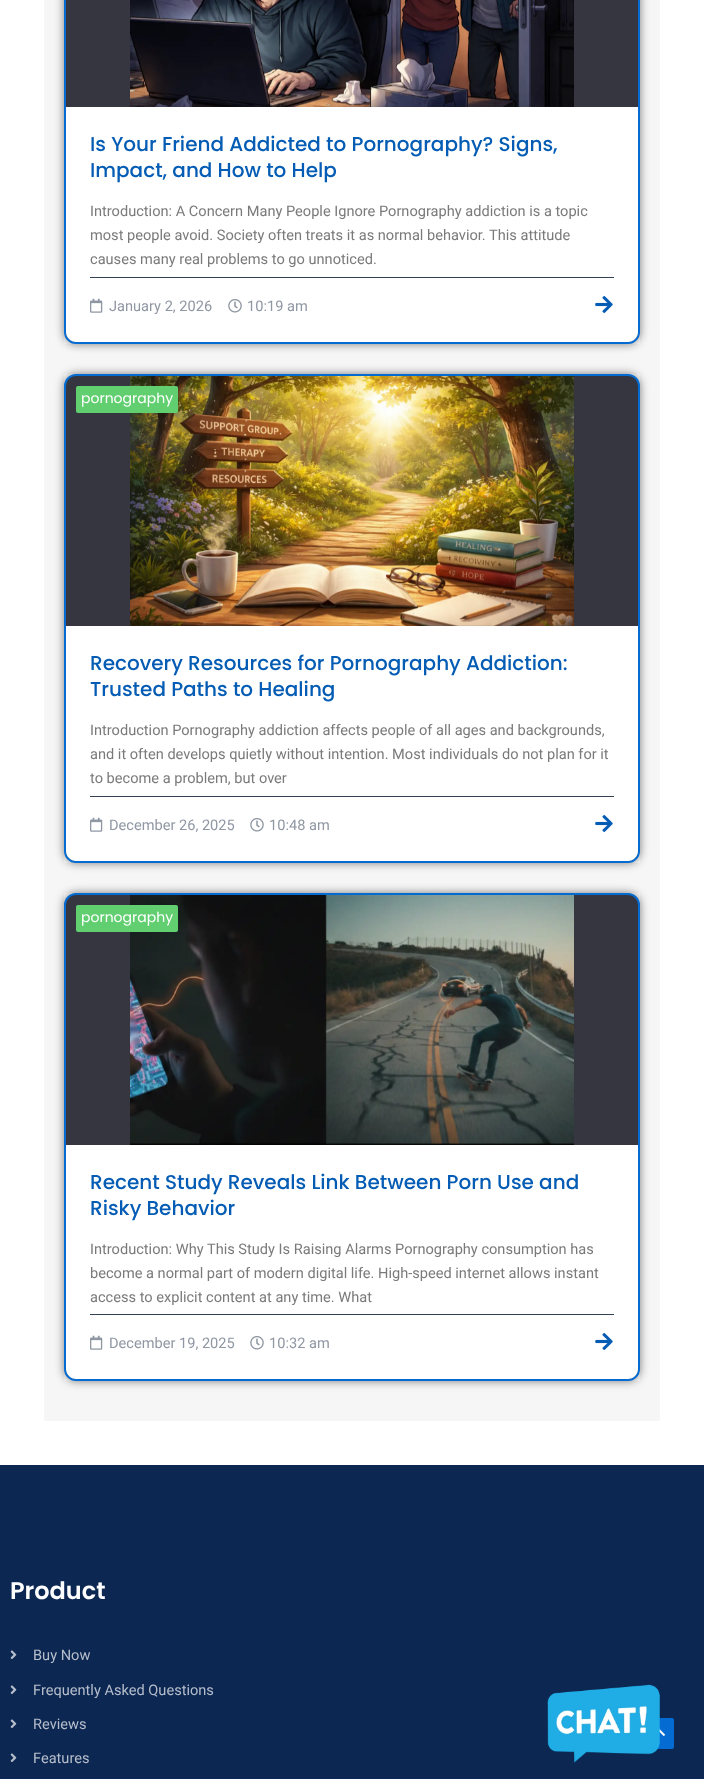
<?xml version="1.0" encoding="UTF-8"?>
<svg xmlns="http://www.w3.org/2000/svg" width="704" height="1779">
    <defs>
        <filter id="blur1" x="-50%" y="-200%" width="200%" height="500%"><feGaussianBlur stdDeviation="5"/></filter>
    </defs>
    <rect width="100%" height="100%" fill="#FFFFFF"/>
    <rect x="44" y="0" width="616" height="1421" fill="#F6F6F6"/>
    <rect x="64" y="332" width="576" height="12" fill="#FFFFFF"/>
    <rect x="64" y="-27" width="576" height="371" rx="12" fill="#000000" fill-opacity="0.5" filter="url(#blur1)"/>
    <rect x="65" y="-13" width="574" height="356" rx="11" fill="#353640" stroke="#046BD2" stroke-width="2"/>
    <image x="130" y="0" width="444" height="107" href="img_01.png"/>
    <path d="M 66 107 H 638 V 332 C 638 337.5 633.5 342 628 342 H 76 C 70.5 342 66 337.5 66 332 Z" fill="#FFFFFF"/>
    <rect x="90" y="277" width="524" height="1" fill="#334155"/>
    <text font-family="Poppins" font-size="20" font-weight="500" fill="#045CB4">
        <tspan x="90" y="151">Is Your Friend Addicted to Pornography? Signs,</tspan>
        <tspan x="90" y="177">Impact, and How to Help</tspan>
    </text>
    <text font-family="Roboto" font-size="14.6" fill="#7A7A7A">
        <tspan x="90" y="216">Introduction: A Concern Many People Ignore Pornography addiction is a topic</tspan>
        <tspan x="90" y="240">most people avoid. Society often treats it as normal behavior. This attitude</tspan>
        <tspan x="90" y="264">causes many real problems to go unnoticed.</tspan>
    </text>
    <image x="90" y="298" width="13" height="15" href="img_02.png"/>
    <text x="109" y="311" font-family="Roboto" font-size="14.6" fill="#8F97A3">January 2, 2026</text>
    <image x="228" y="299" width="14" height="14" href="img_03.png"/>
    <text x="247" y="311" font-family="Roboto" font-size="14.6" fill="#8F97A3">10:19 am</text>
    <image x="595" y="296" width="18" height="17" href="img_04.png"/>
    <rect x="64" y="374" width="576" height="489" fill="#FFFFFF"/>
    <rect x="64" y="374" width="576" height="489" rx="12" fill="#000000" fill-opacity="0.5" filter="url(#blur1)"/>
    <rect x="65" y="375" width="574" height="487" rx="11" fill="#353640" stroke="#046BD2" stroke-width="2"/>
    <image x="130" y="376" width="444" height="250" href="img_05.png"/>
    <rect x="76" y="386" width="102" height="27" rx="2" fill="#61CE70"/>
    <text x="81" y="403" font-family="Poppins" font-size="14" fill="#FFFFFF">pornography</text>
    <path d="M 66 626 H 638 V 851 C 638 856.5 633.5 861 628 861 H 76 C 70.5 861 66 856.5 66 851 Z" fill="#FFFFFF"/>
    <rect x="90" y="796" width="524" height="1" fill="#334155"/>
    <text font-family="Poppins" font-size="20" font-weight="500" fill="#045CB4">
        <tspan x="90" y="670">Recovery Resources for Pornography Addiction:</tspan>
        <tspan x="90" y="696">Trusted Paths to Healing</tspan>
    </text>
    <text font-family="Roboto" font-size="14.6" fill="#7A7A7A">
        <tspan x="90" y="735">Introduction Pornography addiction affects people of all ages and backgrounds,</tspan>
        <tspan x="90" y="759">and it often develops quietly without intention. Most individuals do not plan for it</tspan>
        <tspan x="90" y="783">to become a problem, but over</tspan>
    </text>
    <image x="90" y="817" width="13" height="15" href="img_02.png"/>
    <text x="109" y="830" font-family="Roboto" font-size="14.6" fill="#8F97A3">December 26, 2025</text>
    <image x="250" y="818" width="14" height="14" href="img_03.png"/>
    <text x="269" y="830" font-family="Roboto" font-size="14.6" fill="#8F97A3">10:48 am</text>
    <image x="595" y="815" width="18" height="17" href="img_04.png"/>
    <rect x="64" y="893" width="576" height="488" fill="#FFFFFF"/>
    <rect x="64" y="893" width="576" height="488" rx="12" fill="#000000" fill-opacity="0.5" filter="url(#blur1)"/>
    <rect x="65" y="894" width="574" height="486" rx="11" fill="#353640" stroke="#046BD2" stroke-width="2"/>
    <image x="130" y="895" width="444" height="250" href="img_06.png"/>
    <rect x="76" y="905" width="102" height="27" rx="2" fill="#61CE70"/>
    <text x="81" y="922" font-family="Poppins" font-size="14" fill="#FFFFFF">pornography</text>
    <path d="M 66 1145 H 638 V 1369 C 638 1374.5 633.5 1379 628 1379 H 76 C 70.5 1379 66 1374.5 66 1369 Z" fill="#FFFFFF"/>
    <rect x="90" y="1314" width="524" height="1" fill="#334155"/>
    <text font-family="Poppins" font-size="20" font-weight="500" fill="#045CB4">
        <tspan x="90" y="1189">Recent Study Reveals Link Between Porn Use and</tspan>
        <tspan x="90" y="1215">Risky Behavior</tspan>
    </text>
    <text font-family="Roboto" font-size="14.6" fill="#7A7A7A">
        <tspan x="90" y="1254">Introduction: Why This Study Is Raising Alarms Pornography consumption has</tspan>
        <tspan x="90" y="1278">become a normal part of modern digital life. High-speed internet allows instant</tspan>
        <tspan x="90" y="1302">access to explicit content at any time. What</tspan>
    </text>
    <image x="90" y="1335" width="13" height="15" href="img_02.png"/>
    <text x="109" y="1348" font-family="Roboto" font-size="14.6" fill="#8F97A3">December 19, 2025</text>
    <image x="250" y="1336" width="14" height="14" href="img_03.png"/>
    <text x="269" y="1348" font-family="Roboto" font-size="14.6" fill="#8F97A3">10:32 am</text>
    <image x="595" y="1333" width="18" height="17" href="img_04.png"/>
    <rect x="0" y="1465" width="704" height="314" fill="#0D2753"/>
    <text x="10" y="1599" font-family="Poppins" font-size="24" font-weight="600" fill="#FFFFFF">Product</text>
    <image x="10" y="1650" width="7" height="9" href="img_07.png"/>
    <text x="33" y="1660" font-family="Roboto" font-size="14.6" fill="#B6BECB">Buy Now</text>
    <image x="10" y="1685" width="7" height="9" href="img_07.png"/>
    <text x="33" y="1695" font-family="Roboto" font-size="14.6" fill="#B6BECB">Frequently Asked Questions</text>
    <image x="10" y="1719" width="7" height="9" href="img_07.png"/>
    <text x="33" y="1729" font-family="Roboto" font-size="14.6" fill="#B6BECB">Reviews</text>
    <image x="10" y="1753" width="7" height="9" href="img_07.png"/>
    <text x="33" y="1763" font-family="Roboto" font-size="14.6" fill="#B6BECB">Features</text>
    <rect x="643" y="1718" width="31" height="31" rx="2" fill="#046BD2"/>
    <image x="659" y="1728" width="7" height="9" href="img_09.png"/>
    <image x="547" y="1684" width="113" height="79" href="img_08.png"/>
</svg>
